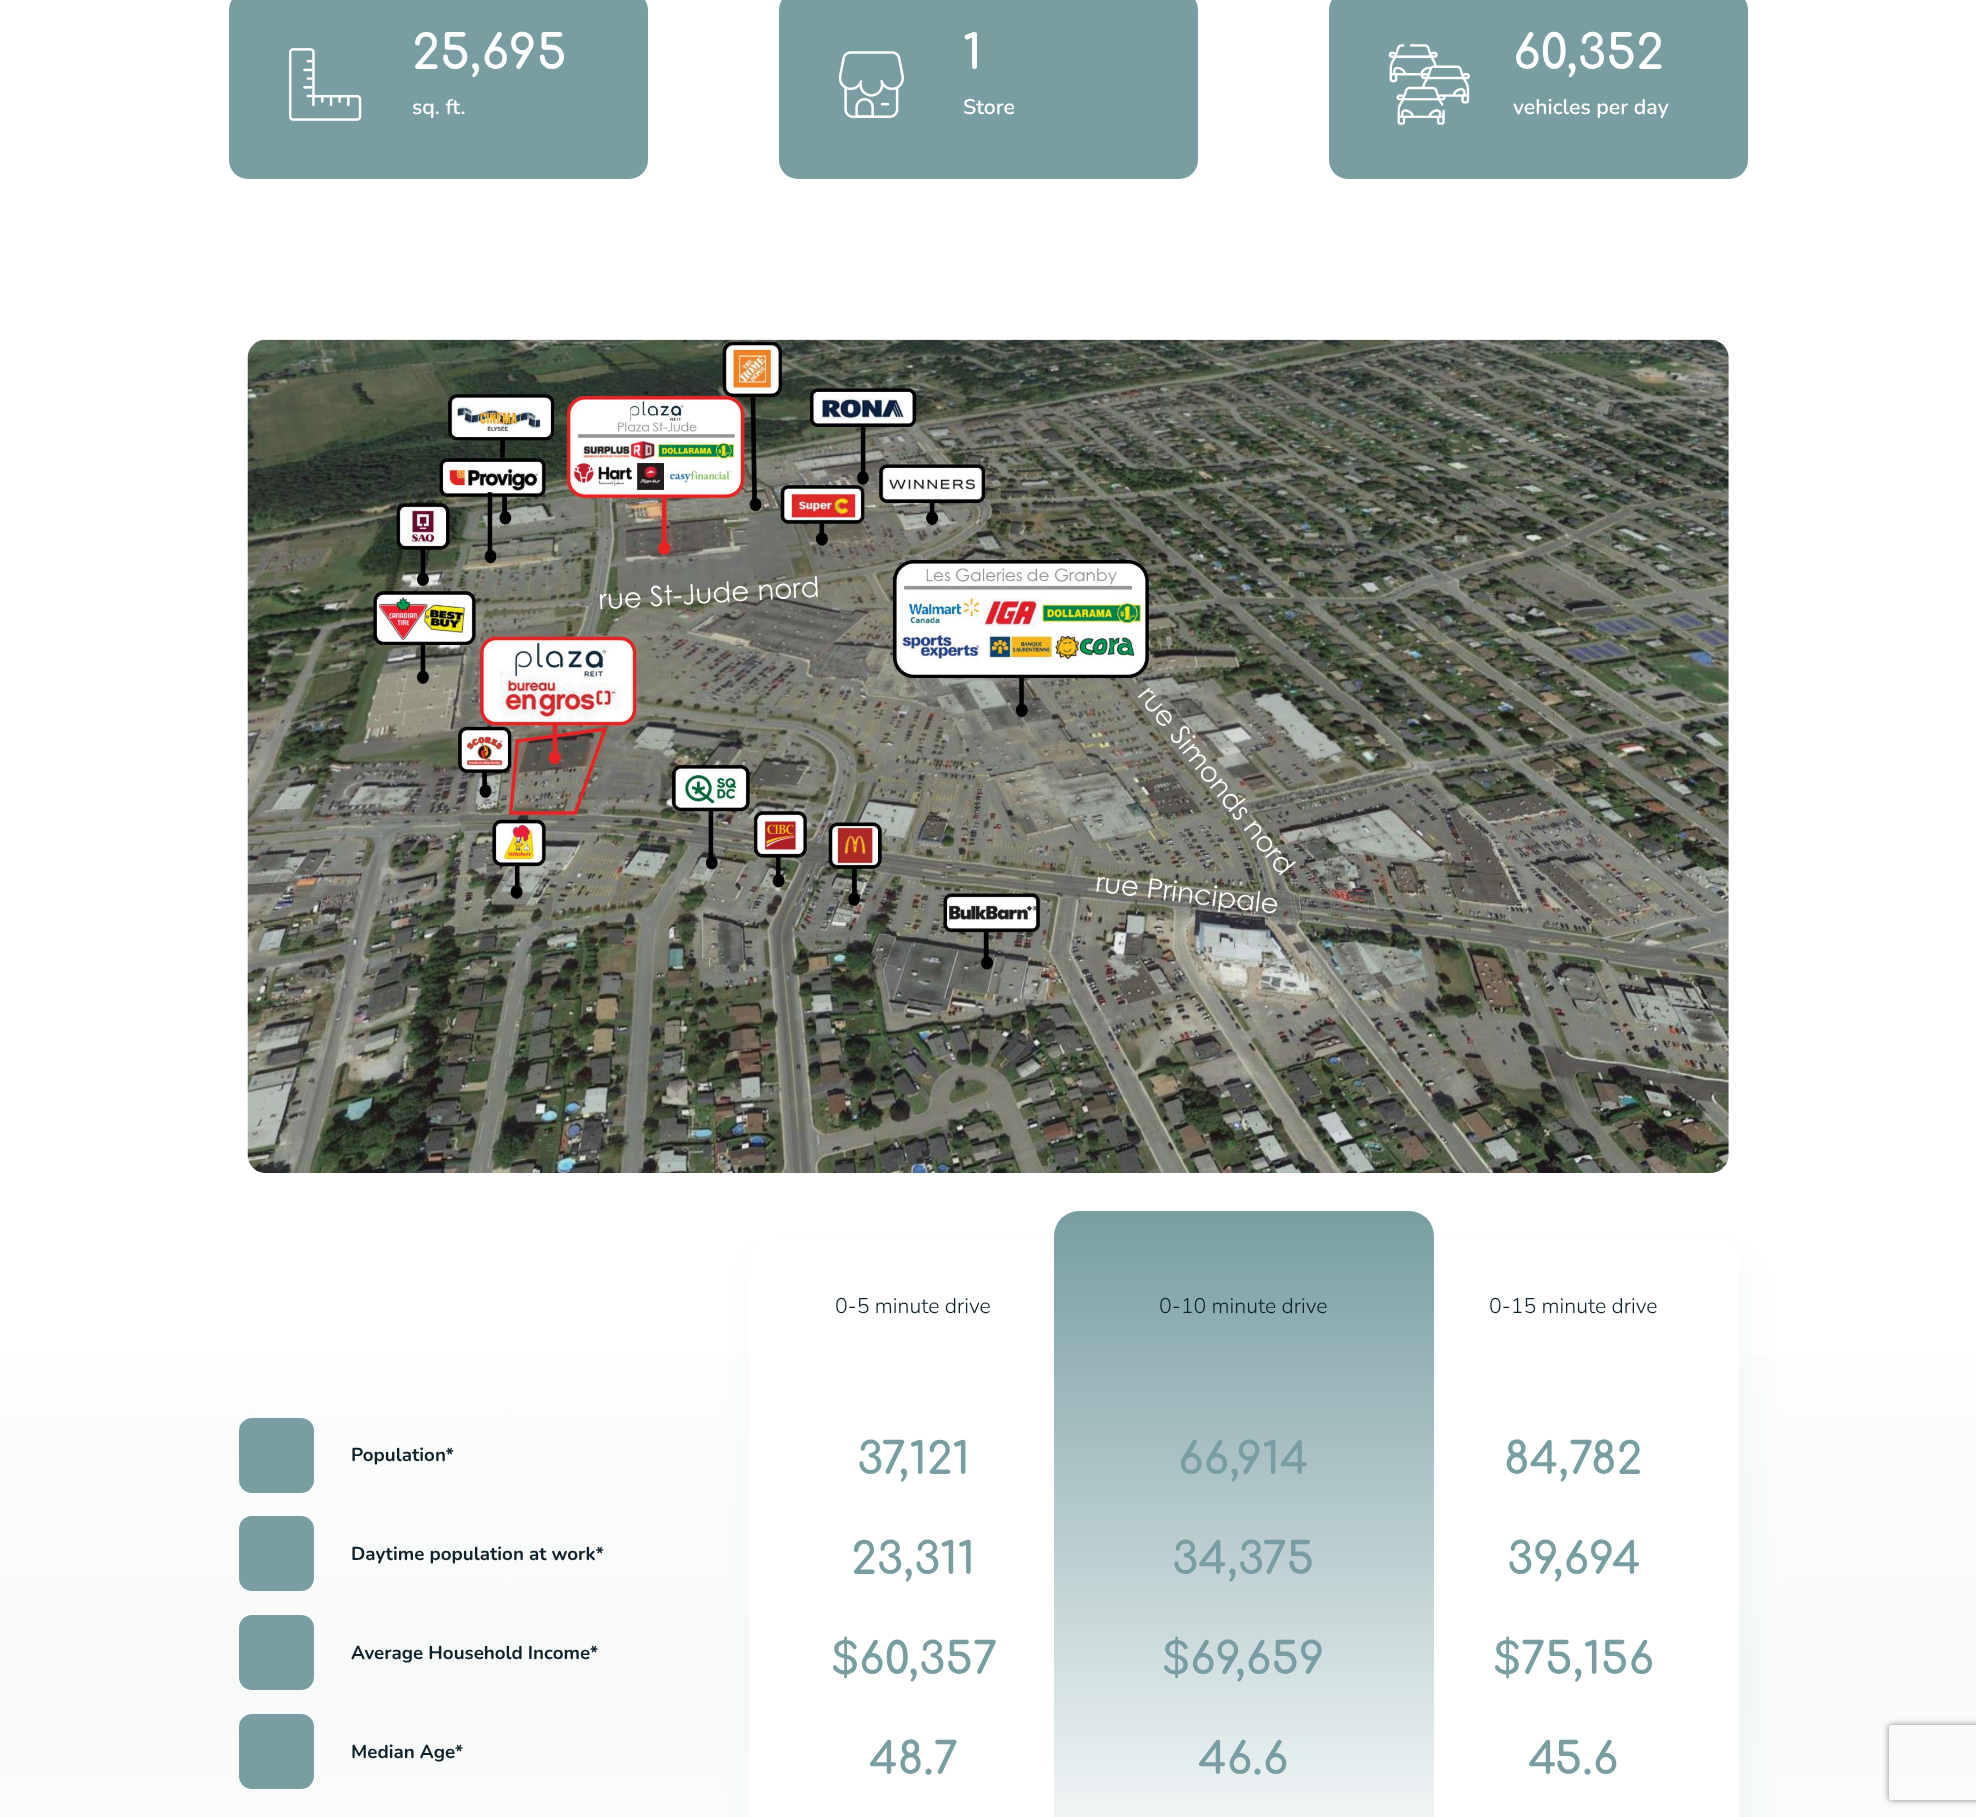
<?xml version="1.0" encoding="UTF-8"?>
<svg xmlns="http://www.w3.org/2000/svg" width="1976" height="1817">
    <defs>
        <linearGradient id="g1" gradientUnits="userSpaceOnUse" x1="988" y1="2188" x2="988" y2="1174"><stop offset="0" stop-color="#FFFFFF"/><stop offset="0.5" stop-color="#F8FAFA"/><stop offset="1" stop-color="#FFFFFF"/></linearGradient>
        <filter id="blur1" x="-50%" y="-200%" width="200%" height="500%"><feGaussianBlur stdDeviation="15.5"/></filter>
        <linearGradient id="g2" gradientUnits="userSpaceOnUse" x1="1244" y1="1211" x2="1244" y2="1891"><stop offset="0" stop-color="#789EA1"/><stop offset="1" stop-color="#FFFFFF"/></linearGradient>
        <clipPath id="clip1"><path d="M 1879 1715 H 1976 V 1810 H 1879 Z M 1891.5 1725 H 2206.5 C 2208 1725 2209 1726 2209 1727.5 V 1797.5 C 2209 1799 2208 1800 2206.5 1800 H 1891.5 C 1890 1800 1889 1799 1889 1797.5 V 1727.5 C 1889 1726 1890 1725 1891.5 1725 Z" clip-rule="evenodd"/></clipPath>
        <filter id="blur2" x="-50%" y="-200%" width="200%" height="500%"><feGaussianBlur stdDeviation="3"/></filter>
    </defs>
    <rect width="100%" height="100%" fill="#FFFFFF"/>
    <rect x="229" y="-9" width="419" height="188" rx="19" fill="#789EA1"/>
    <image x="289" y="48" width="73" height="73" href="img_01.png"/>
    <text x="412" y="69" font-family="Comfortaa" font-size="47.5" font-weight="700" fill="#FFFFFF">25,695</text>
    <text x="412" y="114" font-family="Nunito" font-size="21.25" font-weight="600" fill="#FFFFFF">sq. ft.</text>
    <rect x="779" y="-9" width="419" height="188" rx="19" fill="#789EA1"/>
    <image x="839" y="51" width="65" height="67" href="img_02.png"/>
    <text x="963" y="69" font-family="Comfortaa" font-size="47.5" font-weight="700" fill="#FFFFFF">1</text>
    <text x="963" y="114" font-family="Nunito" font-size="21.25" font-weight="600" fill="#FFFFFF">Store</text>
    <rect x="1329" y="-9" width="419" height="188" rx="19" fill="#789EA1"/>
    <image x="1388" y="43" width="82" height="83" href="img_03.png"/>
    <text x="1513" y="69" font-family="Comfortaa" font-size="47.5" font-weight="700" fill="#FFFFFF">60,352</text>
    <text x="1513" y="114" font-family="Nunito" font-size="21.25" font-weight="600" fill="#FFFFFF">vehicles per day</text>
    <image x="247" y="339" width="1482" height="834" href="img_04.png"/>
    <rect x="0" y="1355" width="1976" height="462" fill="url(#g1)"/>
    <rect x="239" y="1418" width="75" height="75" rx="13" fill="#789EA1"/>
    <text x="351" y="1461" font-family="Nunito" font-size="18.75" font-weight="700" fill="#0F212B">Population*</text>
    <rect x="239" y="1516" width="75" height="75" rx="13" fill="#789EA1"/>
    <text x="351" y="1560" font-family="Nunito" font-size="18.75" font-weight="700" fill="#0F212B">Daytime population at work*</text>
    <rect x="239" y="1615" width="75" height="75" rx="13" fill="#789EA1"/>
    <text x="351" y="1659" font-family="Nunito" font-size="18.75" font-weight="700" fill="#0F212B">Average Household Income*</text>
    <rect x="239" y="1714" width="75" height="75" rx="13" fill="#789EA1"/>
    <text x="351" y="1758" font-family="Nunito" font-size="18.75" font-weight="700" fill="#0F212B">Median Age*</text>
    <rect x="755" y="1261" width="330" height="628" rx="25" fill="#789EA1" fill-opacity="0.08" filter="url(#blur1)"/>
    <rect x="749" y="1236" width="330" height="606" rx="25" fill="#FFFFFF"/>
    <text x="835" y="1313" font-family="Nunito" font-size="21.25" font-weight="300" fill="#0F212B">0-5 minute drive</text>
    <text x="857" y="1474" font-family="Comfortaa" font-size="44" font-weight="700" fill="#789EA1">37,121</text>
    <text x="851" y="1574" font-family="Comfortaa" font-size="44" font-weight="700" fill="#789EA1">23,311</text>
    <text x="831" y="1674" font-family="Comfortaa" font-size="44" font-weight="700" fill="#789EA1">$60,357</text>
    <text x="869" y="1774" font-family="Comfortaa" font-size="44" font-weight="700" fill="#789EA1">48.7</text>
    <rect x="1415" y="1261" width="330" height="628" rx="25" fill="#789EA1" fill-opacity="0.08" filter="url(#blur1)"/>
    <rect x="1409" y="1236" width="330" height="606" rx="25" fill="#FFFFFF"/>
    <rect x="1054" y="1211" width="380" height="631" rx="25" fill="url(#g2)"/>
    <text x="1159" y="1313" font-family="Nunito" font-size="21.25" font-weight="300" fill="#0F212B">0-10 minute drive</text>
    <text x="1178" y="1474" font-family="Comfortaa" font-size="44" font-weight="700" fill="#789EA1">66,914</text>
    <text x="1172" y="1574" font-family="Comfortaa" font-size="44" font-weight="700" fill="#789EA1">34,375</text>
    <text x="1162" y="1674" font-family="Comfortaa" font-size="44" font-weight="700" fill="#789EA1">$69,659</text>
    <text x="1198" y="1774" font-family="Comfortaa" font-size="44" font-weight="700" fill="#789EA1">46.6</text>
    <text x="1489" y="1313" font-family="Nunito" font-size="21.25" font-weight="300" fill="#0F212B">0-15 minute drive</text>
    <text x="1504" y="1474" font-family="Comfortaa" font-size="44" font-weight="700" fill="#789EA1">84,782</text>
    <text x="1507" y="1574" font-family="Comfortaa" font-size="44" font-weight="700" fill="#789EA1">39,694</text>
    <text x="1493" y="1674" font-family="Comfortaa" font-size="44" font-weight="700" fill="#789EA1">$75,156</text>
    <text x="1528" y="1774" font-family="Comfortaa" font-size="44" font-weight="700" fill="#789EA1">45.6</text>
    <g clip-path="url(#clip1)">
        <rect x="1889" y="1725" width="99" height="75" rx="2.5" fill="#808080" filter="url(#blur2)"/>
    </g>
</svg>
